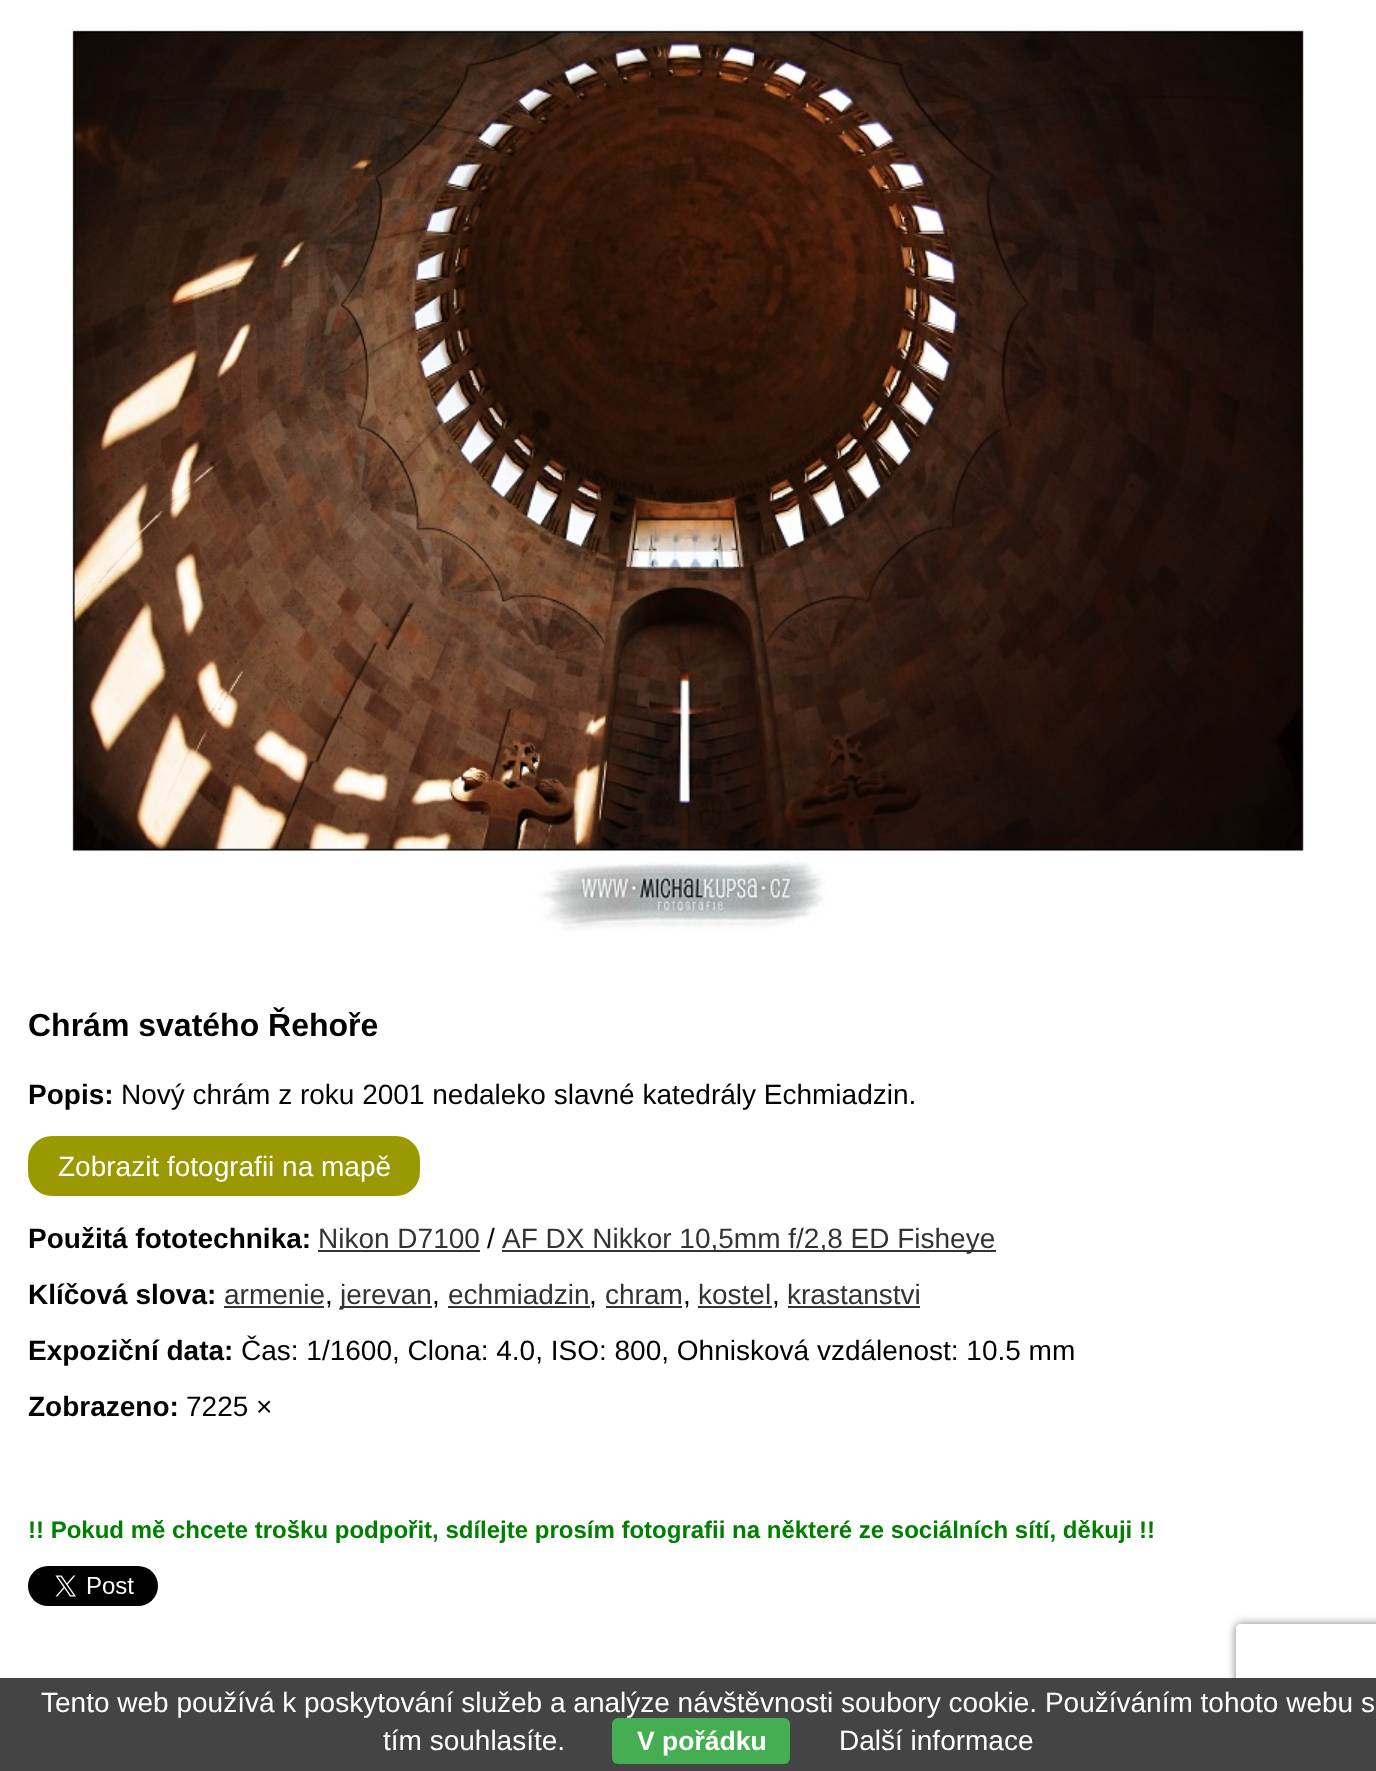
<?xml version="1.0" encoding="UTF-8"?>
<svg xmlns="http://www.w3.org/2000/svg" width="1376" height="1771">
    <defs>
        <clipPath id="clip1"><path d="M 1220 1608 H 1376 V 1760 H 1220 Z M 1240 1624 H 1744 C 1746 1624 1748 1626 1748 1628 V 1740 C 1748 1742 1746 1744 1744 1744 H 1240 C 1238 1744 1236 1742 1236 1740 V 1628 C 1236 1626 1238 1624 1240 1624 Z" clip-rule="evenodd"/></clipPath>
        <filter id="blur1" x="-50%" y="-200%" width="200%" height="500%"><feGaussianBlur stdDeviation="5"/></filter>
    </defs>
    <rect width="100%" height="100%" fill="#FFFFFF"/>
    <image x="64" y="28" width="1240" height="904" href="img_01.png"/>
    <text x="28" y="1036" font-family="Liberation Sans" font-size="32" font-weight="700" fill="#000000">Chrám svatého Řehoře</text>
    <text x="28" y="1104" font-family="Liberation Sans" font-size="28" font-weight="700" fill="#000000">Popis:</text>
    <text x="121" y="1104" font-family="Liberation Sans" font-size="28" fill="#000000">Nový chrám z roku 2001 nedaleko slavné katedrály Echmiadzin.</text>
    <rect x="28" y="1136" width="392" height="60" rx="24" fill="#9A9901"/>
    <text x="58" y="1176" font-family="Liberation Sans" font-size="28" fill="#FFFFFF">Zobrazit fotografii na mapě</text>
    <text x="28" y="1248" font-family="Liberation Sans" font-size="28" font-weight="700" fill="#000000">Použitá fototechnika:</text>
    <text x="318" y="1248" font-family="Liberation Sans" font-size="28" fill="#333333">Nikon D7100</text>
    <rect x="318" y="1250" width="162" height="2" fill="#333333"/>
    <text x="487" y="1248" font-family="Liberation Sans" font-size="28" fill="#000000">/</text>
    <rect x="502" y="1250" width="494" height="2" fill="#333333"/>
    <text x="502" y="1248" font-family="Liberation Sans" font-size="28" fill="#333333">AF DX Nikkor 10,5mm f/2,8 ED Fisheye</text>
    <text x="28" y="1304" font-family="Liberation Sans" font-size="28" font-weight="700" fill="#000000">Klíčová slova:</text>
    <text x="224" y="1304" font-family="Liberation Sans" font-size="28" fill="#333333">armenie</text>
    <rect x="224" y="1306" width="100" height="2" fill="#333333"/>
    <text x="325" y="1304" font-family="Liberation Sans" font-size="28" fill="#000000">,</text>
    <rect x="340" y="1306" width="92" height="2" fill="#333333"/>
    <text x="340" y="1304" font-family="Liberation Sans" font-size="28" fill="#333333">jerevan</text>
    <text x="432" y="1304" font-family="Liberation Sans" font-size="28" fill="#000000">,</text>
    <text x="448" y="1304" font-family="Liberation Sans" font-size="28" fill="#333333">echmiadzin</text>
    <rect x="448" y="1306" width="142" height="2" fill="#333333"/>
    <text x="589" y="1304" font-family="Liberation Sans" font-size="28" fill="#000000">,</text>
    <text x="605" y="1304" font-family="Liberation Sans" font-size="28" fill="#333333">chram</text>
    <rect x="606" y="1306" width="76" height="2" fill="#333333"/>
    <text x="683" y="1304" font-family="Liberation Sans" font-size="28" fill="#000000">,</text>
    <text x="698" y="1304" font-family="Liberation Sans" font-size="28" fill="#333333">kostel</text>
    <rect x="698" y="1306" width="74" height="2" fill="#333333"/>
    <text x="772" y="1304" font-family="Liberation Sans" font-size="28" fill="#000000">,</text>
    <text x="787" y="1304" font-family="Liberation Sans" font-size="28" fill="#333333">krastanstvi</text>
    <rect x="788" y="1306" width="132" height="2" fill="#333333"/>
    <text x="28" y="1360" font-family="Liberation Sans" font-size="28" font-weight="700" fill="#000000">Expoziční data:</text>
    <text x="241" y="1360" font-family="Liberation Sans" font-size="28" fill="#000000">Čas: 1/1600, Clona: 4.0, ISO: 800, Ohnisková vzdálenost: 10.5 mm</text>
    <text x="28" y="1416" font-family="Liberation Sans" font-size="28" font-weight="700" fill="#000000">Zobrazeno:</text>
    <text x="186" y="1416" font-family="Liberation Sans" font-size="28" fill="#000000">7225 ×</text>
    <text x="28" y="1538" font-family="Liberation Sans" font-size="24" font-weight="700" fill="#008000">!! Pokud mě chcete trošku podpořit, sdílejte prosím fotografii na některé ze sociálních sítí, děkuji !!</text>
    <image x="28" y="1566" width="130" height="40" href="img_02.png"/>
    <g clip-path="url(#clip1)">
        <rect x="1236" y="1624" width="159" height="120" rx="4" fill="#808080" filter="url(#blur1)"/>
    </g>
    <rect x="0" y="1678" width="1376" height="93" fill="#444444"/>
    <text x="41" y="1712" font-family="Liberation Sans" font-size="28" fill="#FFFFFF">Tento web používá k poskytování služeb a analýze návštěvnosti soubory cookie. Používáním tohoto webu s</text>
    <text x="383" y="1750" font-family="Liberation Sans" font-size="28" fill="#FFFFFF">tím souhlasíte.</text>
    <rect x="612" y="1718" width="178" height="46" rx="6" fill="#45AE52"/>
    <text x="637" y="1750" font-family="Liberation Sans" font-size="26.5" font-weight="700" fill="#FFFFFF">V pořádku</text>
    <text x="839" y="1750" font-family="Liberation Sans" font-size="28" fill="#FFFFFF">Další informace</text>
</svg>
